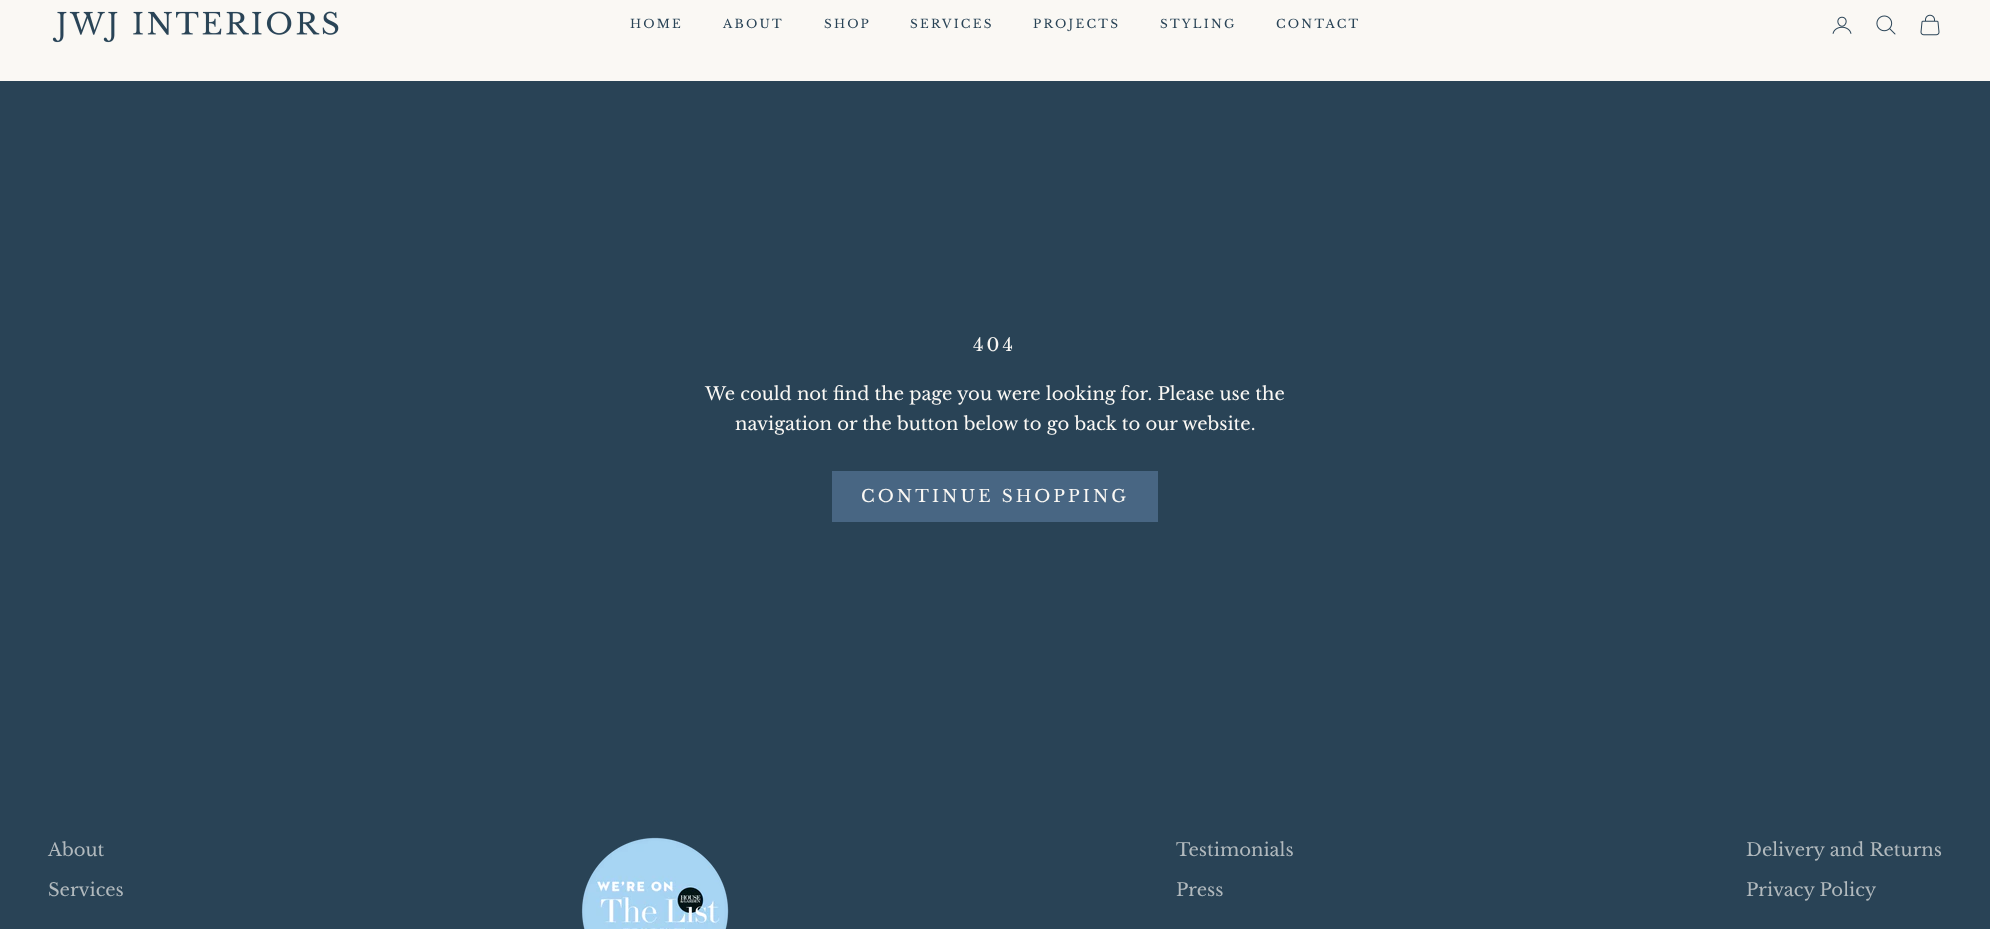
<?xml version="1.0" encoding="UTF-8"?>
<svg xmlns="http://www.w3.org/2000/svg" width="1990" height="929">
    <rect width="100%" height="100%" fill="#294356"/>
    <rect x="0" y="0" width="1990" height="81" fill="#FAF8F4"/>
    <image x="52" y="11" width="287" height="32" href="img_01.png"/>
    <text x="630" y="28" font-family="Libre Baskerville" font-size="12" letter-spacing="2.25" fill="#294356">HOME</text>
    <text x="723" y="28" font-family="Libre Baskerville" font-size="12" letter-spacing="2.25" fill="#294356">ABOUT</text>
    <text x="824" y="28" font-family="Libre Baskerville" font-size="12" letter-spacing="2.25" fill="#294356">SHOP</text>
    <text x="910" y="28" font-family="Libre Baskerville" font-size="12" letter-spacing="2.25" fill="#294356">SERVICES</text>
    <text x="1033" y="28" font-family="Libre Baskerville" font-size="12" letter-spacing="2.25" fill="#294356">PROJECTS</text>
    <text x="1160" y="28" font-family="Libre Baskerville" font-size="12" letter-spacing="2.25" fill="#294356">STYLING</text>
    <text x="1276" y="28" font-family="Libre Baskerville" font-size="12" letter-spacing="2.25" fill="#294356">CONTACT</text>
    <image x="1832" y="16" width="20" height="18" href="img_02.png"/>
    <image x="1876" y="15" width="20" height="20" href="img_03.png"/>
    <image x="1920" y="14" width="20" height="22" href="img_04.png"/>
    <text x="973" y="351" font-family="Libre Baskerville" font-size="18" letter-spacing="3" fill="#FAF8F4">404</text>
    <text x="705" y="400" font-family="Libre Baskerville" font-size="18" fill="#FAF8F4">We could not find the page you were looking for. Please use the</text>
    <text x="735" y="430" font-family="Libre Baskerville" font-size="18" fill="#FAF8F4">navigation or the button below to go back to our website.</text>
    <rect x="832.5" y="471.5" width="325" height="50" fill="#486683" stroke="#486683"/>
    <text x="861" y="502" font-family="Libre Baskerville" font-size="17" letter-spacing="3.1" fill="#FAF8F4">CONTINUE SHOPPING</text>
    <text x="48" y="856" font-family="Libre Baskerville" font-size="18" fill="#B1B9BD">About</text>
    <text x="48" y="896" font-family="Libre Baskerville" font-size="18" fill="#B1B9BD">Services</text>
    <image x="581" y="837" width="148" height="92" href="img_05.png"/>
    <text x="1176" y="856" font-family="Libre Baskerville" font-size="18" fill="#B1B9BD">Testimonials</text>
    <text x="1176" y="896" font-family="Libre Baskerville" font-size="18" fill="#B1B9BD">Press</text>
    <text x="1746" y="856" font-family="Libre Baskerville" font-size="18" fill="#B1B9BD">Delivery and Returns</text>
    <text x="1746" y="896" font-family="Libre Baskerville" font-size="18" fill="#B1B9BD">Privacy Policy</text>
</svg>
